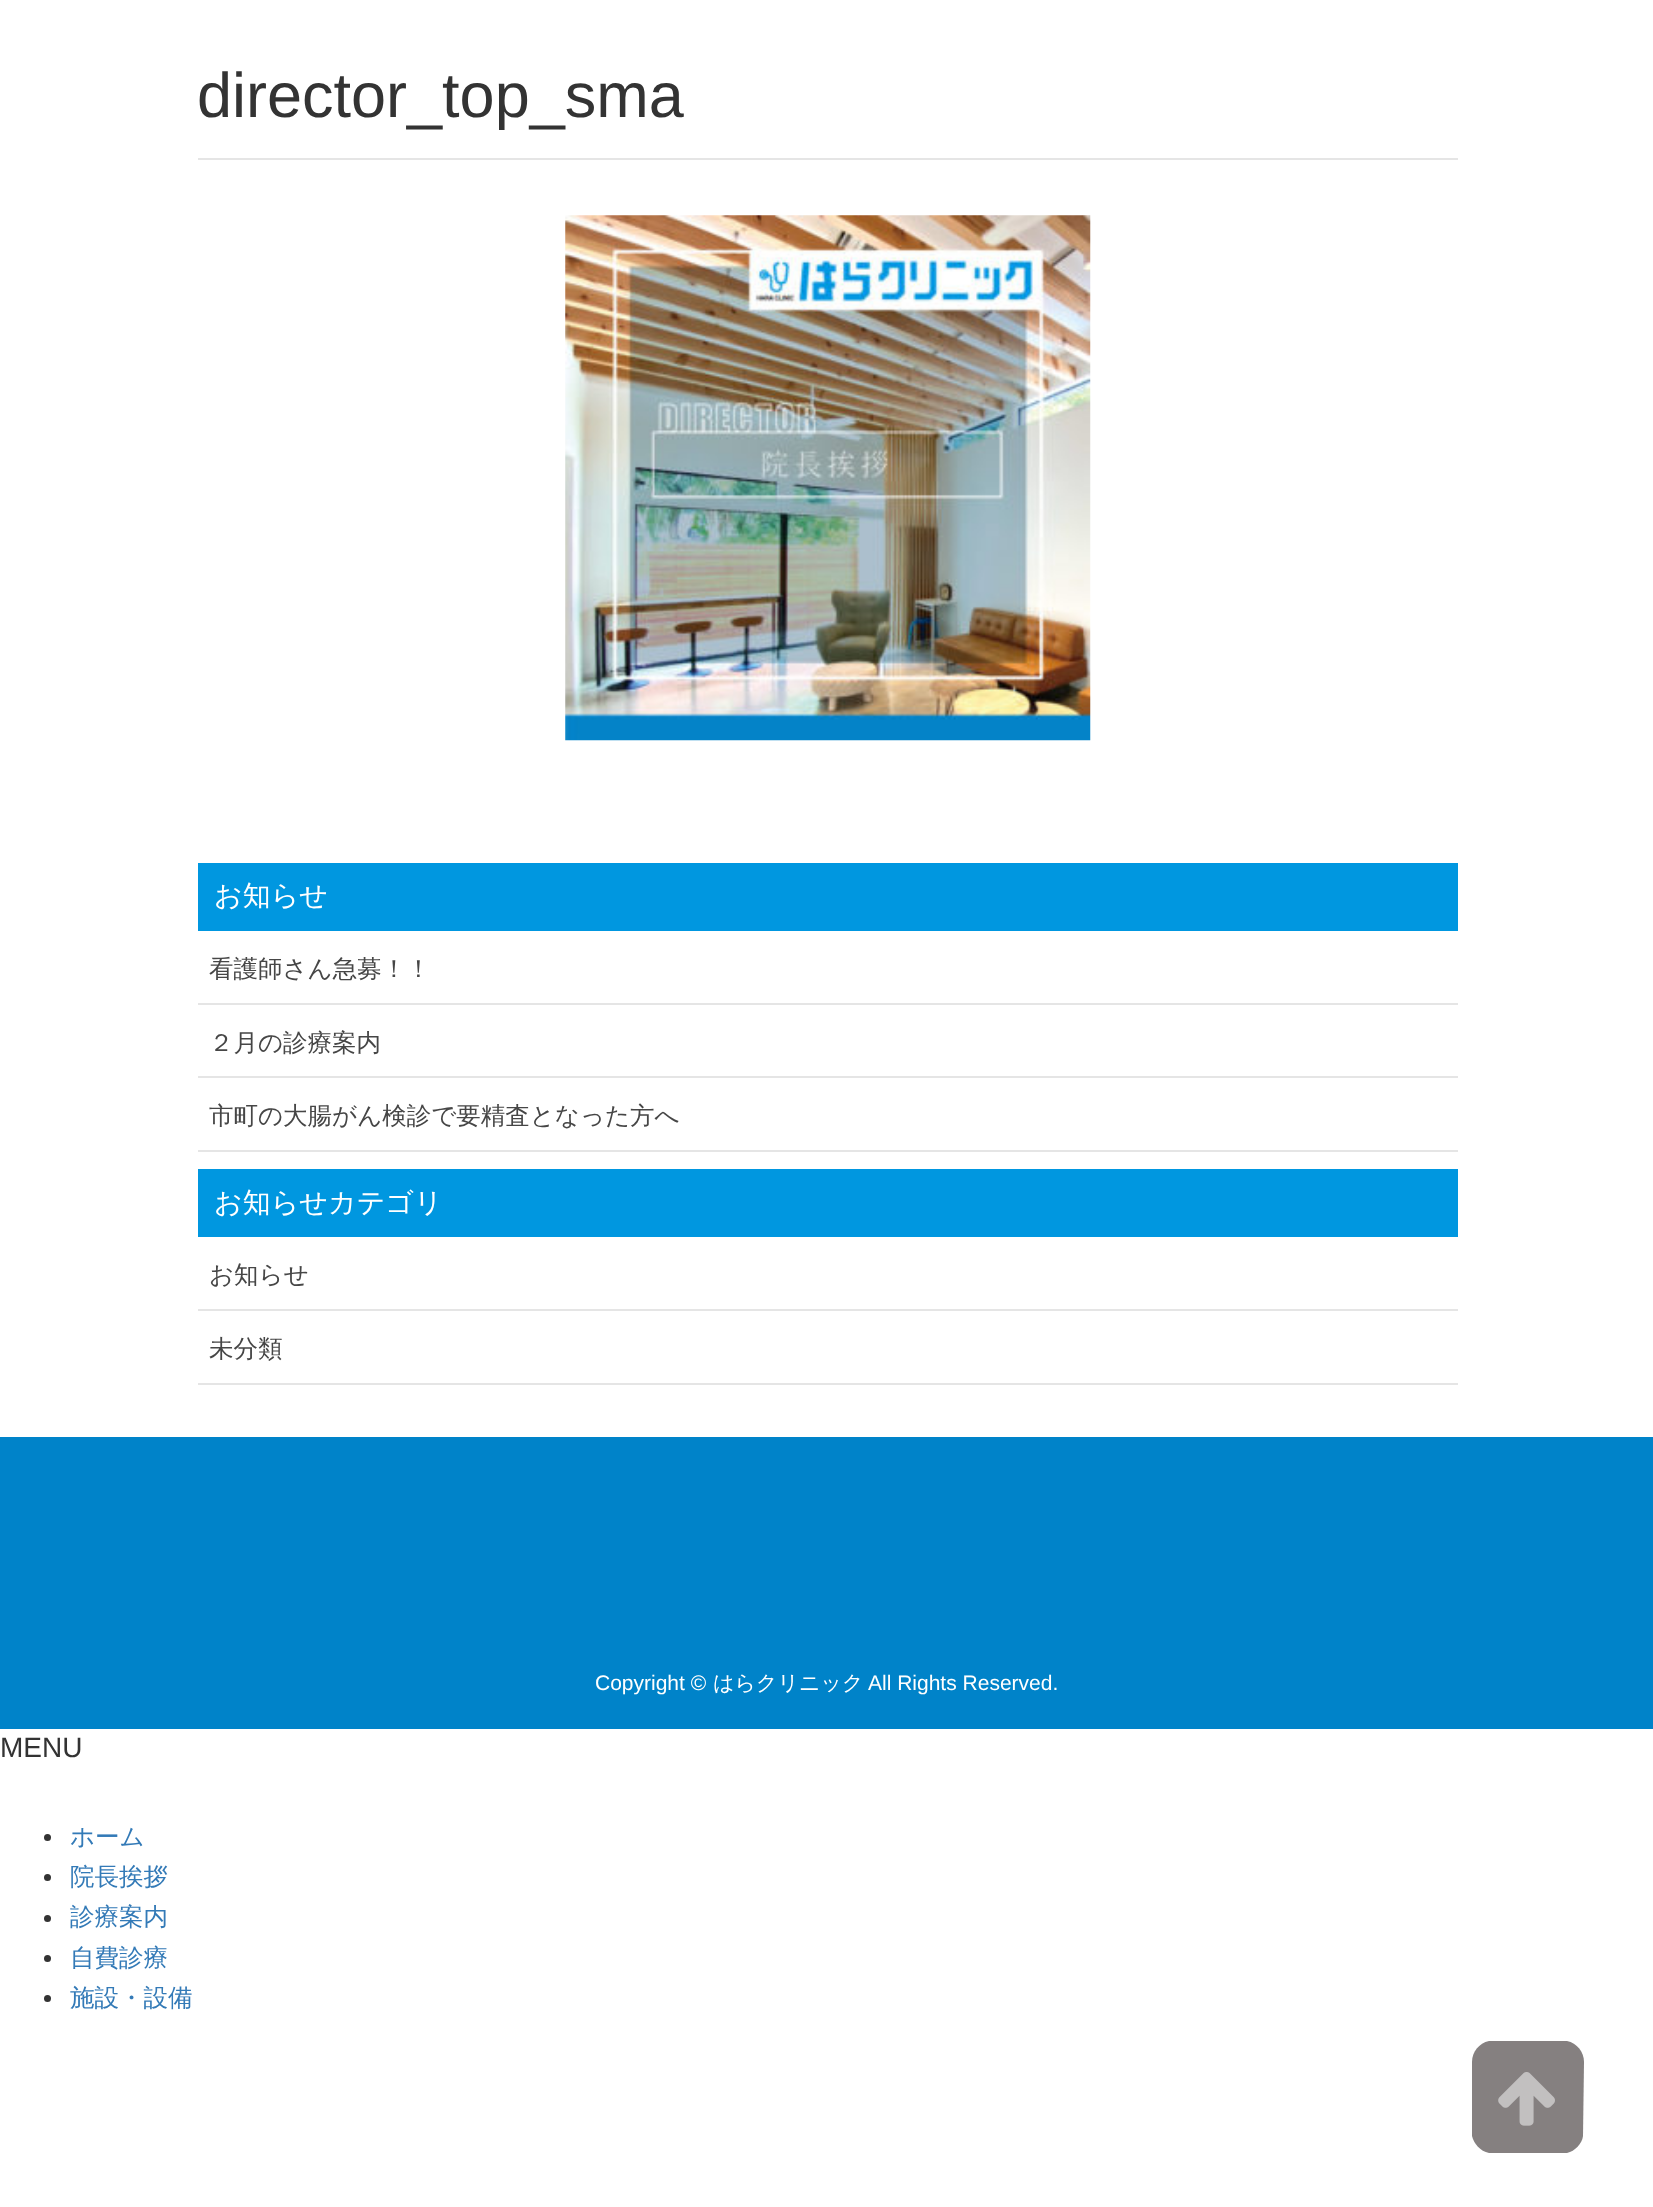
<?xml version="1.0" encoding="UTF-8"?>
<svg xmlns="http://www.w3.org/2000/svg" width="1653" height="2207">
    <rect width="100%" height="100%" fill="#FFFFFF"/>
    <rect x="198" y="158" width="1260" height="2" fill="#E5E5E5"/>
    <text x="197" y="117" font-family="Liberation Sans" font-size="63" fill="#333333">director_top_sma</text>
    <image x="565" y="215" width="526" height="526" href="img_01.png"/>
    <rect x="198" y="863" width="1260" height="68" fill="#0097E0"/>
    <text x="214" y="905" font-family="WenQuanYi Zen Hei" font-size="28" font-weight="500" fill="#FFFFFF">お知らせ</text>
    <rect x="198" y="1003" width="1260" height="2" fill="#E5E5E5"/>
    <text x="209" y="977" font-family="WenQuanYi Zen Hei" font-size="24.5" font-weight="500" fill="#464646">看護師さん急募！！</text>
    <rect x="198" y="1076" width="1260" height="2" fill="#E5E5E5"/>
    <text x="209" y="1051" font-family="WenQuanYi Zen Hei" font-size="24.5" font-weight="500" fill="#464646">２月の診療案内</text>
    <rect x="198" y="1150" width="1260" height="2" fill="#E5E5E5"/>
    <text x="209" y="1124" font-family="WenQuanYi Zen Hei" font-size="24.5" font-weight="500" fill="#464646">市町の大腸がん検診で要精査となった方へ</text>
    <rect x="198" y="1169" width="1260" height="68" fill="#0097E0"/>
    <text x="214" y="1212" font-family="WenQuanYi Zen Hei" font-size="28" font-weight="500" fill="#FFFFFF">お知らせカテゴリ</text>
    <rect x="198" y="1309" width="1260" height="2" fill="#E5E5E5"/>
    <text x="209" y="1283" font-family="WenQuanYi Zen Hei" font-size="24.5" font-weight="500" fill="#464646">お知らせ</text>
    <rect x="198" y="1383" width="1260" height="2" fill="#E5E5E5"/>
    <text x="209" y="1357" font-family="WenQuanYi Zen Hei" font-size="24.5" font-weight="500" fill="#464646">未分類</text>
    <rect x="0" y="1437" width="1653" height="292" fill="#0083C9"/>
    <text x="595" y="1690" font-family="Liberation Sans" font-size="21" fill="#FFFFFF">Copyright ©</text>
    <text x="713" y="1690" font-family="WenQuanYi Zen Hei" font-size="21" font-weight="500" fill="#FFFFFF">はらクリニック</text>
    <text x="868" y="1690" font-family="Liberation Sans" font-size="21" fill="#FFFFFF">All Rights Reserved.</text>
    <text x="0" y="1757" font-family="Liberation Sans" font-size="28" fill="#333333">MENU</text>
    <circle cx="47.5" cy="1837.5" r="3.5" fill="#333333"/>
    <text x="70" y="1845" font-family="WenQuanYi Zen Hei" font-size="24.5" font-weight="500" fill="#337AB7">ホーム</text>
    <circle cx="47.5" cy="1877.5" r="3.5" fill="#333333"/>
    <text x="70" y="1885" font-family="WenQuanYi Zen Hei" font-size="24.5" font-weight="500" fill="#337AB7">院長挨拶</text>
    <circle cx="47.5" cy="1918.5" r="3.5" fill="#333333"/>
    <text x="70" y="1925" font-family="WenQuanYi Zen Hei" font-size="24.5" font-weight="500" fill="#337AB7">診療案内</text>
    <circle cx="47.5" cy="1958.5" r="3.5" fill="#333333"/>
    <text x="70" y="1966" font-family="WenQuanYi Zen Hei" font-size="24.5" font-weight="500" fill="#337AB7">自費診療</text>
    <circle cx="47.5" cy="1998.5" r="3.5" fill="#333333"/>
    <text x="70" y="2006" font-family="WenQuanYi Zen Hei" font-size="24.5" font-weight="500" fill="#337AB7">施設・設備</text>
    <path d="M 1584 2062 L 1583 2136 C 1582 2144 1575 2151 1567 2153 H 1551 H 1489 C 1480 2151 1474 2144 1472 2136 V 2062 C 1472 2052 1479 2043 1489 2041 H 1504 H 1567 C 1577 2043 1584 2052 1584 2062 Z" fill="#858080"/>
    <image x="1498" y="2072" width="57" height="54" href="img_02.png"/>
</svg>
